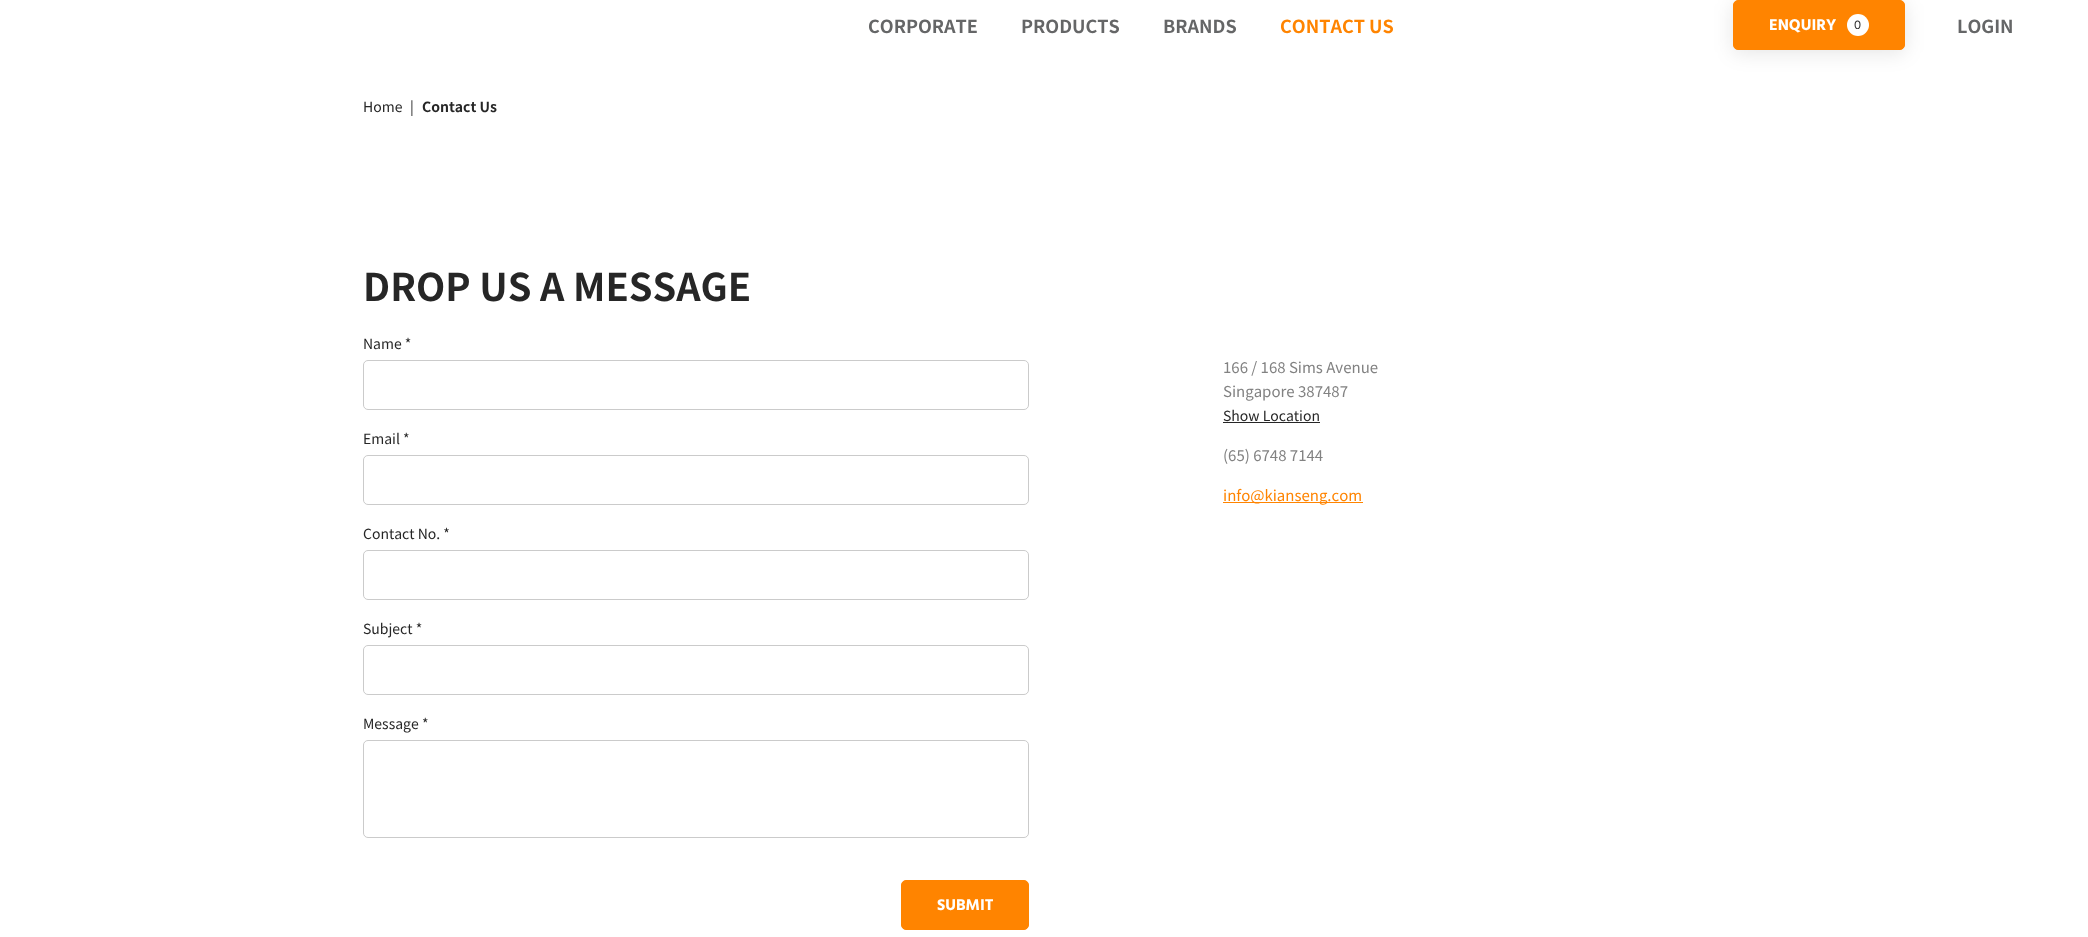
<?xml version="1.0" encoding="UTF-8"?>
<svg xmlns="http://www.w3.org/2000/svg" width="2088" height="937">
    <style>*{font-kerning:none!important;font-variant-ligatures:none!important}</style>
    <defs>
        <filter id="blur1" x="-50%" y="-200%" width="200%" height="500%"><feGaussianBlur stdDeviation="10"/></filter>
    </defs>
    <rect width="100%" height="100%" fill="#FFFFFF"/>
    <text x="868" y="33" font-family="Noto Sans SC" font-size="18" font-weight="700" fill="#656667">CORPORATE</text>
    <text x="1021" y="33" font-family="Noto Sans SC" font-size="18" font-weight="700" fill="#656667">PRODUCTS</text>
    <text x="1163" y="33" font-family="Noto Sans SC" font-size="18" font-weight="700" fill="#656667">BRANDS</text>
    <text x="1280" y="33" font-family="Noto Sans SC" font-size="18" font-weight="700" fill="#FF8400">CONTACT US</text>
    <rect x="1733" y="3" width="172" height="50" rx="5" fill="#000000" fill-opacity="0.1" filter="url(#blur1)"/>
    <rect x="1733.5" y="0.5" width="171" height="49" rx="4.5" fill="#FF8400" stroke="#FF8400"/>
    <text x="1769" y="30" font-family="Hind Siliguri" font-size="16" font-weight="700" fill="#FFFFFF">ENQUIRY</text>
    <circle cx="1858" cy="25" r="11" fill="#FFFFFF"/>
    <text x="1854" y="29" font-family="Hind Siliguri" font-size="13" fill="#313131">0</text>
    <text x="1957" y="33" font-family="Noto Sans SC" font-size="18" font-weight="700" fill="#656667">LOGIN</text>
    <text x="363" y="112" font-family="Noto Sans SC" font-size="14" fill="#262626">Home</text>
    <text x="410" y="112" font-family="Noto Sans SC" font-size="14" fill="#262626">|</text>
    <text x="422" y="112" font-family="Noto Sans SC" font-size="14" font-weight="700" fill="#262626">Contact Us</text>
    <text x="363" y="301" font-family="Noto Sans SC" font-size="38" font-weight="700" fill="#262626">DROP US A MESSAGE</text>
    <text x="363" y="349" font-family="Noto Sans SC" font-size="14" fill="#262626">Name *</text>
    <rect x="363.5" y="360.5" width="665" height="49" rx="4.5" fill="none" stroke="#CBCBCB"/>
    <text x="363" y="444" font-family="Noto Sans SC" font-size="14" fill="#262626">Email *</text>
    <rect x="363.5" y="455.5" width="665" height="49" rx="4.5" fill="none" stroke="#CBCBCB"/>
    <text x="363" y="539" font-family="Noto Sans SC" font-size="14" fill="#262626">Contact No. *</text>
    <rect x="363.5" y="550.5" width="665" height="49" rx="4.5" fill="none" stroke="#CBCBCB"/>
    <text x="363" y="634" font-family="Noto Sans SC" font-size="14" fill="#262626">Subject *</text>
    <rect x="363.5" y="645.5" width="665" height="49" rx="4.5" fill="none" stroke="#CBCBCB"/>
    <text x="363" y="729" font-family="Noto Sans SC" font-size="14" fill="#262626">Message *</text>
    <rect x="363.5" y="740.5" width="665" height="97" rx="4.5" fill="none" stroke="#CBCBCB"/>
    <rect x="901.5" y="880.5" width="127" height="49" rx="4.5" fill="#FF8400" stroke="#FF8400"/>
    <text x="937" y="910" font-family="Hind Siliguri" font-size="16" font-weight="700" fill="#FFFFFF">SUBMIT</text>
    <text font-family="Noto Sans SC" font-size="15" fill="#828282">
        <tspan x="1223" y="373">166 / 168 Sims Avenue</tspan>
        <tspan x="1223" y="397">Singapore 387487</tspan>
    </text>
    <text x="1223" y="421" font-family="Noto Sans SC" font-size="14" fill="#262626">Show Location</text>
    <rect x="1223" y="422" width="97" height="1" fill="#262626"/>
    <text x="1223" y="461" font-family="Noto Sans SC" font-size="15" fill="#828282">(65) 6748 7144</text>
    <rect x="1223" y="502" width="140" height="1" fill="#FF8400"/>
    <text x="1223" y="501" font-family="Noto Sans SC" font-size="15" fill="#FF8400">info@kianseng.com</text>
</svg>
